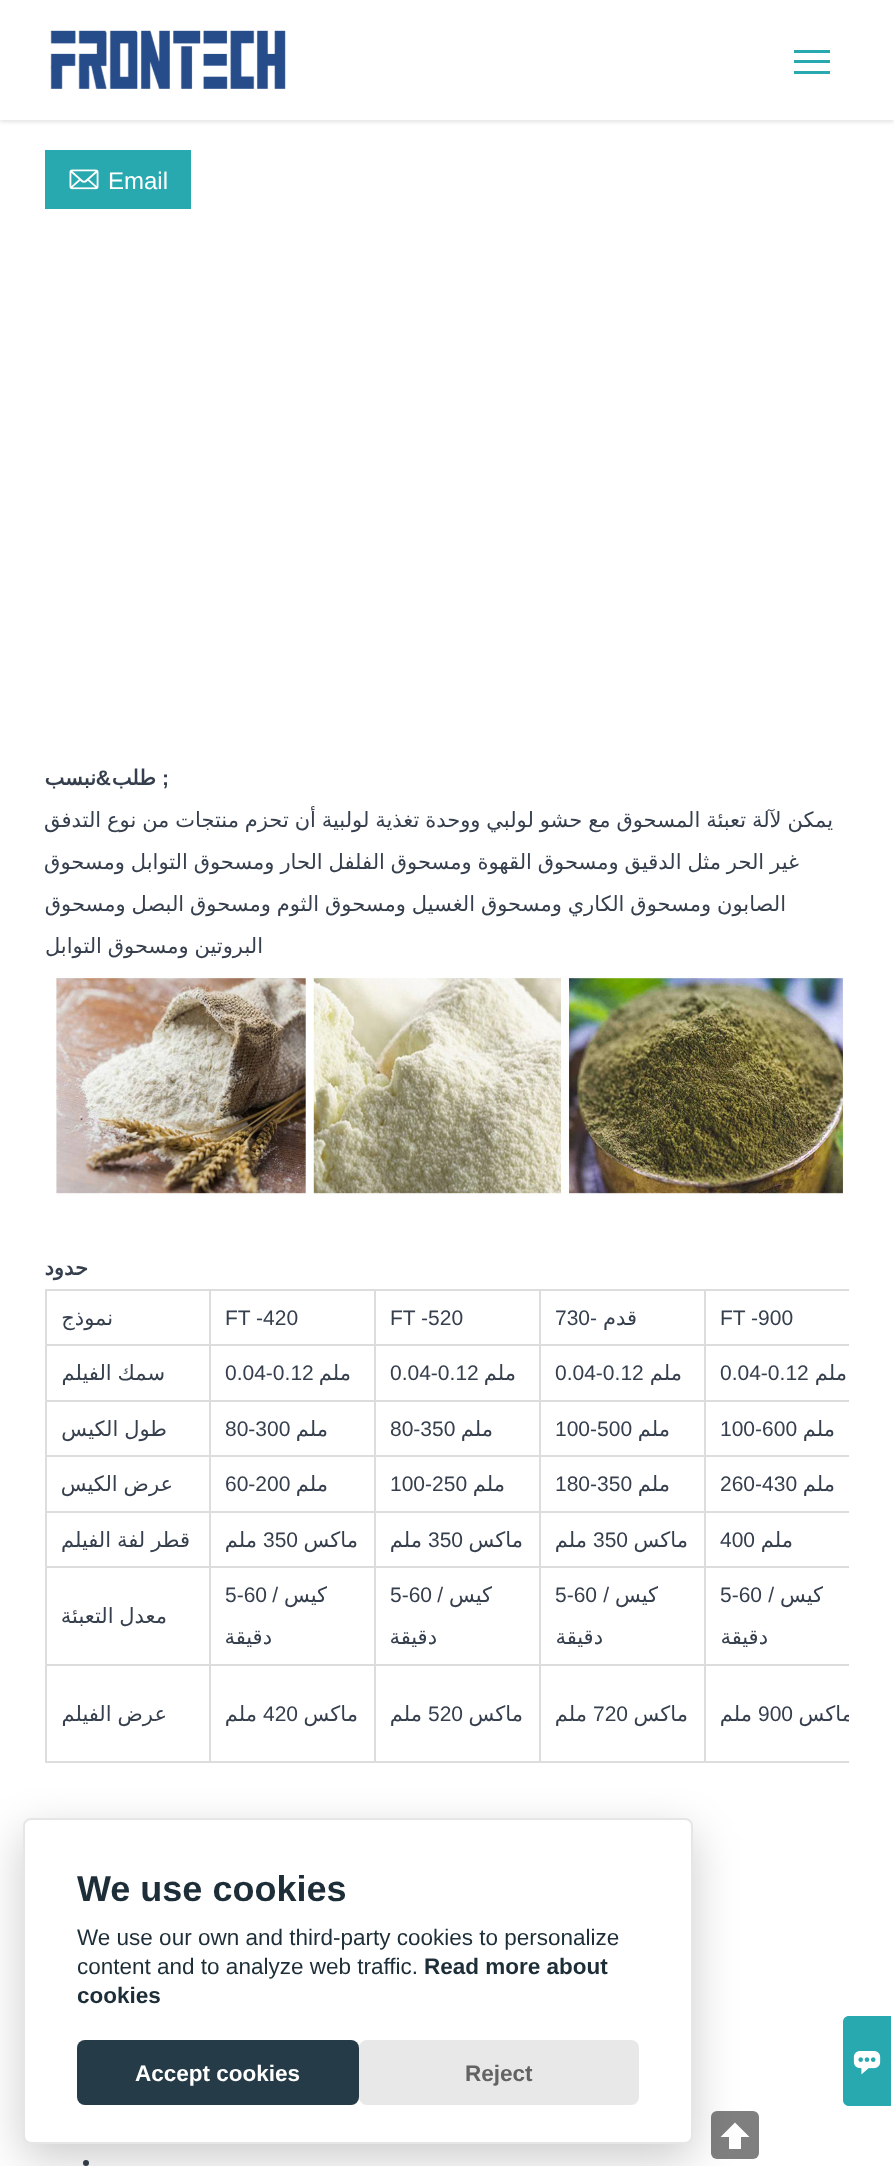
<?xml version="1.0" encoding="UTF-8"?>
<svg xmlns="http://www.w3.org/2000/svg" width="894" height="2166">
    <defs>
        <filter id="blur1" x="-50%" y="-200%" width="200%" height="500%"><feGaussianBlur stdDeviation="2"/></filter>
        <clipPath id="clip1"><rect x="45" y="284" width="804" height="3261"/></clipPath>
        <filter id="blur2" x="-50%" y="-200%" width="200%" height="500%"><feGaussianBlur stdDeviation="22.5"/></filter>
    </defs>
    <rect width="100%" height="100%" fill="#FFFFFF"/>
    <rect x="0" y="2" width="894" height="120" fill="#000000" fill-opacity="0.11" filter="url(#blur1)"/>
    <rect x="0" y="0" width="894" height="120" fill="#FFFFFF"/>
    <rect x="794" y="60" width="36" height="3" fill="#28A8AF"/>
    <rect x="794" y="50" width="36" height="3" fill="#28A8AF"/>
    <rect x="794" y="71" width="36" height="3" fill="#28A8AF"/>
    <image x="50" y="30" width="236" height="59" href="img_01.png"/>
    <rect x="45" y="150" width="146" height="59" fill="#28A8AF"/>
    <text x="108" y="189" font-family="Liberation Sans" font-size="24" fill="#FFFFFF">Email</text>
    <image x="69" y="169" width="30" height="21" href="img_02.png"/>
    <text x="162" y="785" font-family="Liberation Sans" font-size="21" font-weight="700" fill="#363F4D">;</text>
    <text x="156" y="785" font-family="DejaVu Sans" font-size="21" font-weight="700" direction="rtl" fill="#363F4D">طلب</text>
    <text x="111" y="785" font-family="Liberation Sans" font-size="21" font-weight="700" direction="rtl" fill="#363F4D">&amp;</text>
    <text x="96" y="785" font-family="DejaVu Sans" font-size="21" font-weight="700" direction="rtl" fill="#363F4D">نبسب</text>
    <text x="833" y="827" word-spacing="-0.8" font-family="DejaVu Sans" font-size="21" direction="rtl" fill="#363F4D">يمكن لآلة تعبئة المسحوق مع حشو لولبي ووحدة تغذية لولبية أن تحزم منتجات من نوع التدفق</text>
    <text x="799" y="869" word-spacing="-0.8" font-family="DejaVu Sans" font-size="21" direction="rtl" fill="#363F4D">غير الحر مثل الدقيق ومسحوق القهوة ومسحوق الفلفل الحار ومسحوق التوابل ومسحوق</text>
    <text x="786" y="911" word-spacing="-0.8" font-family="DejaVu Sans" font-size="21" direction="rtl" fill="#363F4D">الصابون ومسحوق الكاري ومسحوق الغسيل ومسحوق الثوم ومسحوق البصل ومسحوق</text>
    <text x="263" y="953" word-spacing="-0.8" font-family="DejaVu Sans" font-size="21" direction="rtl" fill="#363F4D">البروتين ومسحوق التوابل</text>
    <image x="56" y="976" width="788" height="220" href="img_03.png"/>
    <text x="88" y="1275" font-family="DejaVu Sans" font-size="21" font-weight="700" direction="rtl" fill="#363F4D">حدود</text>
    <rect x="704" y="1289" width="145" height="2" fill="#DDDDDD"/>
    <rect x="704" y="1344" width="145" height="2" fill="#DDDDDD"/>
    <rect x="704" y="1400" width="145" height="2" fill="#DDDDDD"/>
    <rect x="704" y="1455" width="145" height="2" fill="#DDDDDD"/>
    <rect x="704" y="1511" width="145" height="2" fill="#DDDDDD"/>
    <rect x="704" y="1566" width="145" height="2" fill="#DDDDDD"/>
    <rect x="704" y="1664" width="145" height="2" fill="#DDDDDD"/>
    <rect x="704" y="1761" width="145" height="2" fill="#DDDDDD"/>
    <rect x="704" y="1664" width="2" height="99" fill="#DDDDDD"/>
    <rect x="539" y="1664" width="166" height="2" fill="#DDDDDD"/>
    <rect x="704" y="1566" width="2" height="99" fill="#DDDDDD"/>
    <rect x="539" y="1566" width="166" height="2" fill="#DDDDDD"/>
    <rect x="704" y="1511" width="2" height="57" fill="#DDDDDD"/>
    <rect x="539" y="1511" width="166" height="2" fill="#DDDDDD"/>
    <rect x="704" y="1455" width="2" height="57" fill="#DDDDDD"/>
    <rect x="539" y="1455" width="166" height="2" fill="#DDDDDD"/>
    <rect x="704" y="1400" width="2" height="57" fill="#DDDDDD"/>
    <rect x="539" y="1400" width="166" height="2" fill="#DDDDDD"/>
    <rect x="704" y="1344" width="2" height="57" fill="#DDDDDD"/>
    <rect x="539" y="1344" width="166" height="2" fill="#DDDDDD"/>
    <rect x="704" y="1289" width="2" height="57" fill="#DDDDDD"/>
    <text x="720" y="1325" font-family="Liberation Sans" font-size="21" fill="#363F4D">FT -900</text>
    <rect x="539" y="1289" width="166" height="2" fill="#DDDDDD"/>
    <rect x="539" y="1761" width="166" height="2" fill="#DDDDDD"/>
    <rect x="539" y="1664" width="2" height="99" fill="#DDDDDD"/>
    <rect x="374" y="1664" width="166" height="2" fill="#DDDDDD"/>
    <rect x="539" y="1566" width="2" height="99" fill="#DDDDDD"/>
    <rect x="374" y="1566" width="166" height="2" fill="#DDDDDD"/>
    <rect x="539" y="1511" width="2" height="57" fill="#DDDDDD"/>
    <rect x="374" y="1511" width="166" height="2" fill="#DDDDDD"/>
    <rect x="539" y="1455" width="2" height="57" fill="#DDDDDD"/>
    <rect x="374" y="1455" width="166" height="2" fill="#DDDDDD"/>
    <rect x="539" y="1400" width="2" height="57" fill="#DDDDDD"/>
    <rect x="374" y="1400" width="166" height="2" fill="#DDDDDD"/>
    <rect x="539" y="1344" width="2" height="57" fill="#DDDDDD"/>
    <rect x="374" y="1344" width="166" height="2" fill="#DDDDDD"/>
    <rect x="539" y="1289" width="2" height="57" fill="#DDDDDD"/>
    <text x="637" y="1325" font-family="DejaVu Sans" font-size="21" direction="rtl" fill="#363F4D">قدم</text>
    <text x="597" y="1325" font-family="Liberation Sans" font-size="21" direction="rtl" fill="#363F4D">-</text>
    <text x="555" y="1325" font-family="Liberation Sans" font-size="21" fill="#363F4D">730</text>
    <rect x="374" y="1289" width="166" height="2" fill="#DDDDDD"/>
    <rect x="374" y="1761" width="166" height="2" fill="#DDDDDD"/>
    <rect x="374" y="1664" width="2" height="99" fill="#DDDDDD"/>
    <rect x="209" y="1664" width="166" height="2" fill="#DDDDDD"/>
    <rect x="374" y="1566" width="2" height="99" fill="#DDDDDD"/>
    <rect x="209" y="1566" width="166" height="2" fill="#DDDDDD"/>
    <rect x="374" y="1511" width="2" height="57" fill="#DDDDDD"/>
    <rect x="209" y="1511" width="166" height="2" fill="#DDDDDD"/>
    <rect x="374" y="1455" width="2" height="57" fill="#DDDDDD"/>
    <rect x="209" y="1455" width="166" height="2" fill="#DDDDDD"/>
    <rect x="374" y="1400" width="2" height="57" fill="#DDDDDD"/>
    <rect x="209" y="1400" width="166" height="2" fill="#DDDDDD"/>
    <rect x="374" y="1344" width="2" height="57" fill="#DDDDDD"/>
    <rect x="209" y="1344" width="166" height="2" fill="#DDDDDD"/>
    <rect x="374" y="1289" width="2" height="57" fill="#DDDDDD"/>
    <text x="390" y="1325" font-family="Liberation Sans" font-size="21" fill="#363F4D">FT -520</text>
    <rect x="209" y="1289" width="166" height="2" fill="#DDDDDD"/>
    <rect x="209" y="1761" width="166" height="2" fill="#DDDDDD"/>
    <rect x="209" y="1664" width="2" height="99" fill="#DDDDDD"/>
    <rect x="45" y="1664" width="165" height="2" fill="#DDDDDD"/>
    <rect x="209" y="1566" width="2" height="99" fill="#DDDDDD"/>
    <rect x="45" y="1566" width="165" height="2" fill="#DDDDDD"/>
    <rect x="209" y="1511" width="2" height="57" fill="#DDDDDD"/>
    <rect x="45" y="1511" width="165" height="2" fill="#DDDDDD"/>
    <rect x="209" y="1455" width="2" height="57" fill="#DDDDDD"/>
    <rect x="45" y="1455" width="165" height="2" fill="#DDDDDD"/>
    <rect x="209" y="1400" width="2" height="57" fill="#DDDDDD"/>
    <rect x="45" y="1400" width="165" height="2" fill="#DDDDDD"/>
    <rect x="209" y="1344" width="2" height="57" fill="#DDDDDD"/>
    <rect x="45" y="1344" width="165" height="2" fill="#DDDDDD"/>
    <rect x="209" y="1289" width="2" height="57" fill="#DDDDDD"/>
    <text x="225" y="1325" font-family="Liberation Sans" font-size="21" fill="#363F4D">FT -420</text>
    <rect x="45" y="1289" width="165" height="2" fill="#DDDDDD"/>
    <rect x="45" y="1761" width="165" height="2" fill="#DDDDDD"/>
    <rect x="45" y="1664" width="2" height="99" fill="#DDDDDD"/>
    <rect x="45" y="1566" width="2" height="99" fill="#DDDDDD"/>
    <rect x="45" y="1511" width="2" height="57" fill="#DDDDDD"/>
    <rect x="45" y="1455" width="2" height="57" fill="#DDDDDD"/>
    <rect x="45" y="1400" width="2" height="57" fill="#DDDDDD"/>
    <rect x="45" y="1344" width="2" height="57" fill="#DDDDDD"/>
    <rect x="45" y="1289" width="2" height="57" fill="#DDDDDD"/>
    <text x="113" y="1325" font-family="DejaVu Sans" font-size="21" direction="rtl" fill="#363F4D">نموذج</text>
    <text x="847" y="1380" font-family="DejaVu Sans" font-size="21" direction="rtl" fill="#363F4D">ملم</text>
    <text x="720" y="1380" font-family="Liberation Sans" font-size="21" fill="#363F4D">0.04-0.12</text>
    <text x="682" y="1380" font-family="DejaVu Sans" font-size="21" direction="rtl" fill="#363F4D">ملم</text>
    <text x="555" y="1380" font-family="Liberation Sans" font-size="21" fill="#363F4D">0.04-0.12</text>
    <text x="516" y="1380" font-family="DejaVu Sans" font-size="21" direction="rtl" fill="#363F4D">ملم</text>
    <text x="390" y="1380" font-family="Liberation Sans" font-size="21" fill="#363F4D">0.04-0.12</text>
    <text x="351" y="1380" font-family="DejaVu Sans" font-size="21" direction="rtl" fill="#363F4D">ملم</text>
    <text x="225" y="1380" font-family="Liberation Sans" font-size="21" fill="#363F4D">0.04-0.12</text>
    <text x="165" y="1380" word-spacing="-0.8" font-family="DejaVu Sans" font-size="21" direction="rtl" fill="#363F4D">سمك الفيلم</text>
    <text x="835" y="1436" font-family="DejaVu Sans" font-size="21" direction="rtl" fill="#363F4D">ملم</text>
    <text x="720" y="1436" font-family="Liberation Sans" font-size="21" fill="#363F4D">100-600</text>
    <text x="670" y="1436" font-family="DejaVu Sans" font-size="21" direction="rtl" fill="#363F4D">ملم</text>
    <text x="555" y="1436" font-family="Liberation Sans" font-size="21" fill="#363F4D">100-500</text>
    <text x="493" y="1436" font-family="DejaVu Sans" font-size="21" direction="rtl" fill="#363F4D">ملم</text>
    <text x="390" y="1436" font-family="Liberation Sans" font-size="21" fill="#363F4D">80-350</text>
    <text x="328" y="1436" font-family="DejaVu Sans" font-size="21" direction="rtl" fill="#363F4D">ملم</text>
    <text x="225" y="1436" font-family="Liberation Sans" font-size="21" fill="#363F4D">80-300</text>
    <text x="167" y="1436" word-spacing="-0.8" font-family="DejaVu Sans" font-size="21" direction="rtl" fill="#363F4D">طول الكيس</text>
    <text x="835" y="1491" font-family="DejaVu Sans" font-size="21" direction="rtl" fill="#363F4D">ملم</text>
    <text x="720" y="1491" font-family="Liberation Sans" font-size="21" fill="#363F4D">260-430</text>
    <text x="670" y="1491" font-family="DejaVu Sans" font-size="21" direction="rtl" fill="#363F4D">ملم</text>
    <text x="555" y="1491" font-family="Liberation Sans" font-size="21" fill="#363F4D">180-350</text>
    <text x="505" y="1491" font-family="DejaVu Sans" font-size="21" direction="rtl" fill="#363F4D">ملم</text>
    <text x="390" y="1491" font-family="Liberation Sans" font-size="21" fill="#363F4D">100-250</text>
    <text x="328" y="1491" font-family="DejaVu Sans" font-size="21" direction="rtl" fill="#363F4D">ملم</text>
    <text x="225" y="1491" font-family="Liberation Sans" font-size="21" fill="#363F4D">60-200</text>
    <text x="173" y="1491" word-spacing="-0.8" font-family="DejaVu Sans" font-size="21" direction="rtl" fill="#363F4D">عرض الكيس</text>
    <text x="793" y="1547" font-family="DejaVu Sans" font-size="21" direction="rtl" fill="#363F4D">ملم</text>
    <text x="720" y="1547" font-family="Liberation Sans" font-size="21" fill="#363F4D">400</text>
    <text x="688" y="1547" font-family="DejaVu Sans" font-size="21" direction="rtl" fill="#363F4D">ماكس</text>
    <text x="593" y="1547" font-family="Liberation Sans" font-size="21" fill="#363F4D">350</text>
    <text x="587" y="1547" font-family="DejaVu Sans" font-size="21" direction="rtl" fill="#363F4D">ملم</text>
    <text x="523" y="1547" font-family="DejaVu Sans" font-size="21" direction="rtl" fill="#363F4D">ماكس</text>
    <text x="428" y="1547" font-family="Liberation Sans" font-size="21" fill="#363F4D">350</text>
    <text x="422" y="1547" font-family="DejaVu Sans" font-size="21" direction="rtl" fill="#363F4D">ملم</text>
    <text x="358" y="1547" font-family="DejaVu Sans" font-size="21" direction="rtl" fill="#363F4D">ماكس</text>
    <text x="263" y="1547" font-family="Liberation Sans" font-size="21" fill="#363F4D">350</text>
    <text x="257" y="1547" font-family="DejaVu Sans" font-size="21" direction="rtl" fill="#363F4D">ملم</text>
    <text x="190" y="1547" word-spacing="-0.8" font-family="DejaVu Sans" font-size="21" direction="rtl" fill="#363F4D">قطر لفة الفيلم</text>
    <text x="823" y="1602" font-family="DejaVu Sans" font-size="21" direction="rtl" fill="#363F4D">كيس</text>
    <text x="774" y="1602" font-family="Liberation Sans" font-size="21" direction="rtl" fill="#363F4D">/</text>
    <text x="720" y="1602" font-family="Liberation Sans" font-size="21" fill="#363F4D">5-60</text>
    <text x="768" y="1644" font-family="DejaVu Sans" font-size="21" direction="rtl" fill="#363F4D">دقيقة</text>
    <text x="658" y="1602" font-family="DejaVu Sans" font-size="21" direction="rtl" fill="#363F4D">كيس</text>
    <text x="609" y="1602" font-family="Liberation Sans" font-size="21" direction="rtl" fill="#363F4D">/</text>
    <text x="555" y="1602" font-family="Liberation Sans" font-size="21" fill="#363F4D">5-60</text>
    <text x="603" y="1644" font-family="DejaVu Sans" font-size="21" direction="rtl" fill="#363F4D">دقيقة</text>
    <text x="492" y="1602" font-family="DejaVu Sans" font-size="21" direction="rtl" fill="#363F4D">كيس</text>
    <text x="443" y="1602" font-family="Liberation Sans" font-size="21" direction="rtl" fill="#363F4D">/</text>
    <text x="390" y="1602" font-family="Liberation Sans" font-size="21" fill="#363F4D">5-60</text>
    <text x="437" y="1644" font-family="DejaVu Sans" font-size="21" direction="rtl" fill="#363F4D">دقيقة</text>
    <text x="327" y="1602" font-family="DejaVu Sans" font-size="21" direction="rtl" fill="#363F4D">كيس</text>
    <text x="278" y="1602" font-family="Liberation Sans" font-size="21" direction="rtl" fill="#363F4D">/</text>
    <text x="225" y="1602" font-family="Liberation Sans" font-size="21" fill="#363F4D">5-60</text>
    <text x="272" y="1644" font-family="DejaVu Sans" font-size="21" direction="rtl" fill="#363F4D">دقيقة</text>
    <text x="167" y="1623" word-spacing="-0.8" font-family="DejaVu Sans" font-size="21" direction="rtl" fill="#363F4D">معدل التعبئة</text>
    <g clip-path="url(#clip1)">
        <text x="853" y="1721" font-family="DejaVu Sans" font-size="21" direction="rtl" fill="#363F4D">ماكس</text>
    </g>
    <text x="758" y="1721" font-family="Liberation Sans" font-size="21" fill="#363F4D">900</text>
    <text x="752" y="1721" font-family="DejaVu Sans" font-size="21" direction="rtl" fill="#363F4D">ملم</text>
    <text x="688" y="1721" font-family="DejaVu Sans" font-size="21" direction="rtl" fill="#363F4D">ماكس</text>
    <text x="593" y="1721" font-family="Liberation Sans" font-size="21" fill="#363F4D">720</text>
    <text x="587" y="1721" font-family="DejaVu Sans" font-size="21" direction="rtl" fill="#363F4D">ملم</text>
    <text x="523" y="1721" font-family="DejaVu Sans" font-size="21" direction="rtl" fill="#363F4D">ماكس</text>
    <text x="428" y="1721" font-family="Liberation Sans" font-size="21" fill="#363F4D">520</text>
    <text x="422" y="1721" font-family="DejaVu Sans" font-size="21" direction="rtl" fill="#363F4D">ملم</text>
    <text x="358" y="1721" font-family="DejaVu Sans" font-size="21" direction="rtl" fill="#363F4D">ماكس</text>
    <text x="263" y="1721" font-family="Liberation Sans" font-size="21" fill="#363F4D">420</text>
    <text x="257" y="1721" font-family="DejaVu Sans" font-size="21" direction="rtl" fill="#363F4D">ملم</text>
    <text x="167" y="1721" word-spacing="-0.8" font-family="DejaVu Sans" font-size="21" direction="rtl" fill="#363F4D">عرض الفيلم</text>
    <circle cx="86" cy="2163" r="3" fill="#363F4D"/>
    <path d="M 849 2016 H 891 V 2106 H 849 C 845.5 2106 843 2103.5 843 2100 V 2022 C 843 2018.5 845.5 2016 849 2016 Z" fill="#28A8AF"/>
    <image x="853" y="2051" width="28" height="24" href="img_04.png"/>
    <rect x="711" y="2111" width="48" height="48" rx="6" fill="#000000" fill-opacity="0.5"/>
    <path d="M 749.5 2137 L 735 2122.5 L 720.5 2137 H 729 V 2149 H 741 V 2137 Z" fill="#FFFFFF"/>
    <rect x="23" y="1833" width="670" height="326" rx="8" fill="#020203" fill-opacity="0.2" filter="url(#blur2)"/>
    <rect x="24" y="1819" width="668" height="324" rx="7" fill="#FFFFFF" stroke="#E6E6E6" stroke-width="2"/>
    <text x="77" y="1901" font-family="Liberation Sans" font-size="36" font-weight="700" fill="#1D2E38">We use cookies</text>
    <text x="77" y="1945" font-family="Liberation Sans" font-size="22.5" fill="#1D2E38">We use our own and third-party cookies to personalize</text>
    <text x="424" y="1974" font-family="Liberation Sans" font-size="22.5" font-weight="700" fill="#1D2E38">Read more about</text>
    <text x="77" y="1974" font-family="Liberation Sans" font-size="22.5" fill="#1D2E38">content and to analyze web traffic.</text>
    <text x="77" y="2003" font-family="Liberation Sans" font-size="22.5" font-weight="700" fill="#1D2E38">cookies</text>
    <rect x="359" y="2040" width="280" height="65" rx="8" fill="#E8E8E8"/>
    <text x="465" y="2081" font-family="Liberation Sans" font-size="22.5" font-weight="700" fill="#636363">Reject</text>
    <rect x="77" y="2040" width="282" height="65" rx="8" fill="#253B48"/>
    <text x="135" y="2081" font-family="Liberation Sans" font-size="22.5" font-weight="700" fill="#FFFFFF">Accept cookies</text>
</svg>
